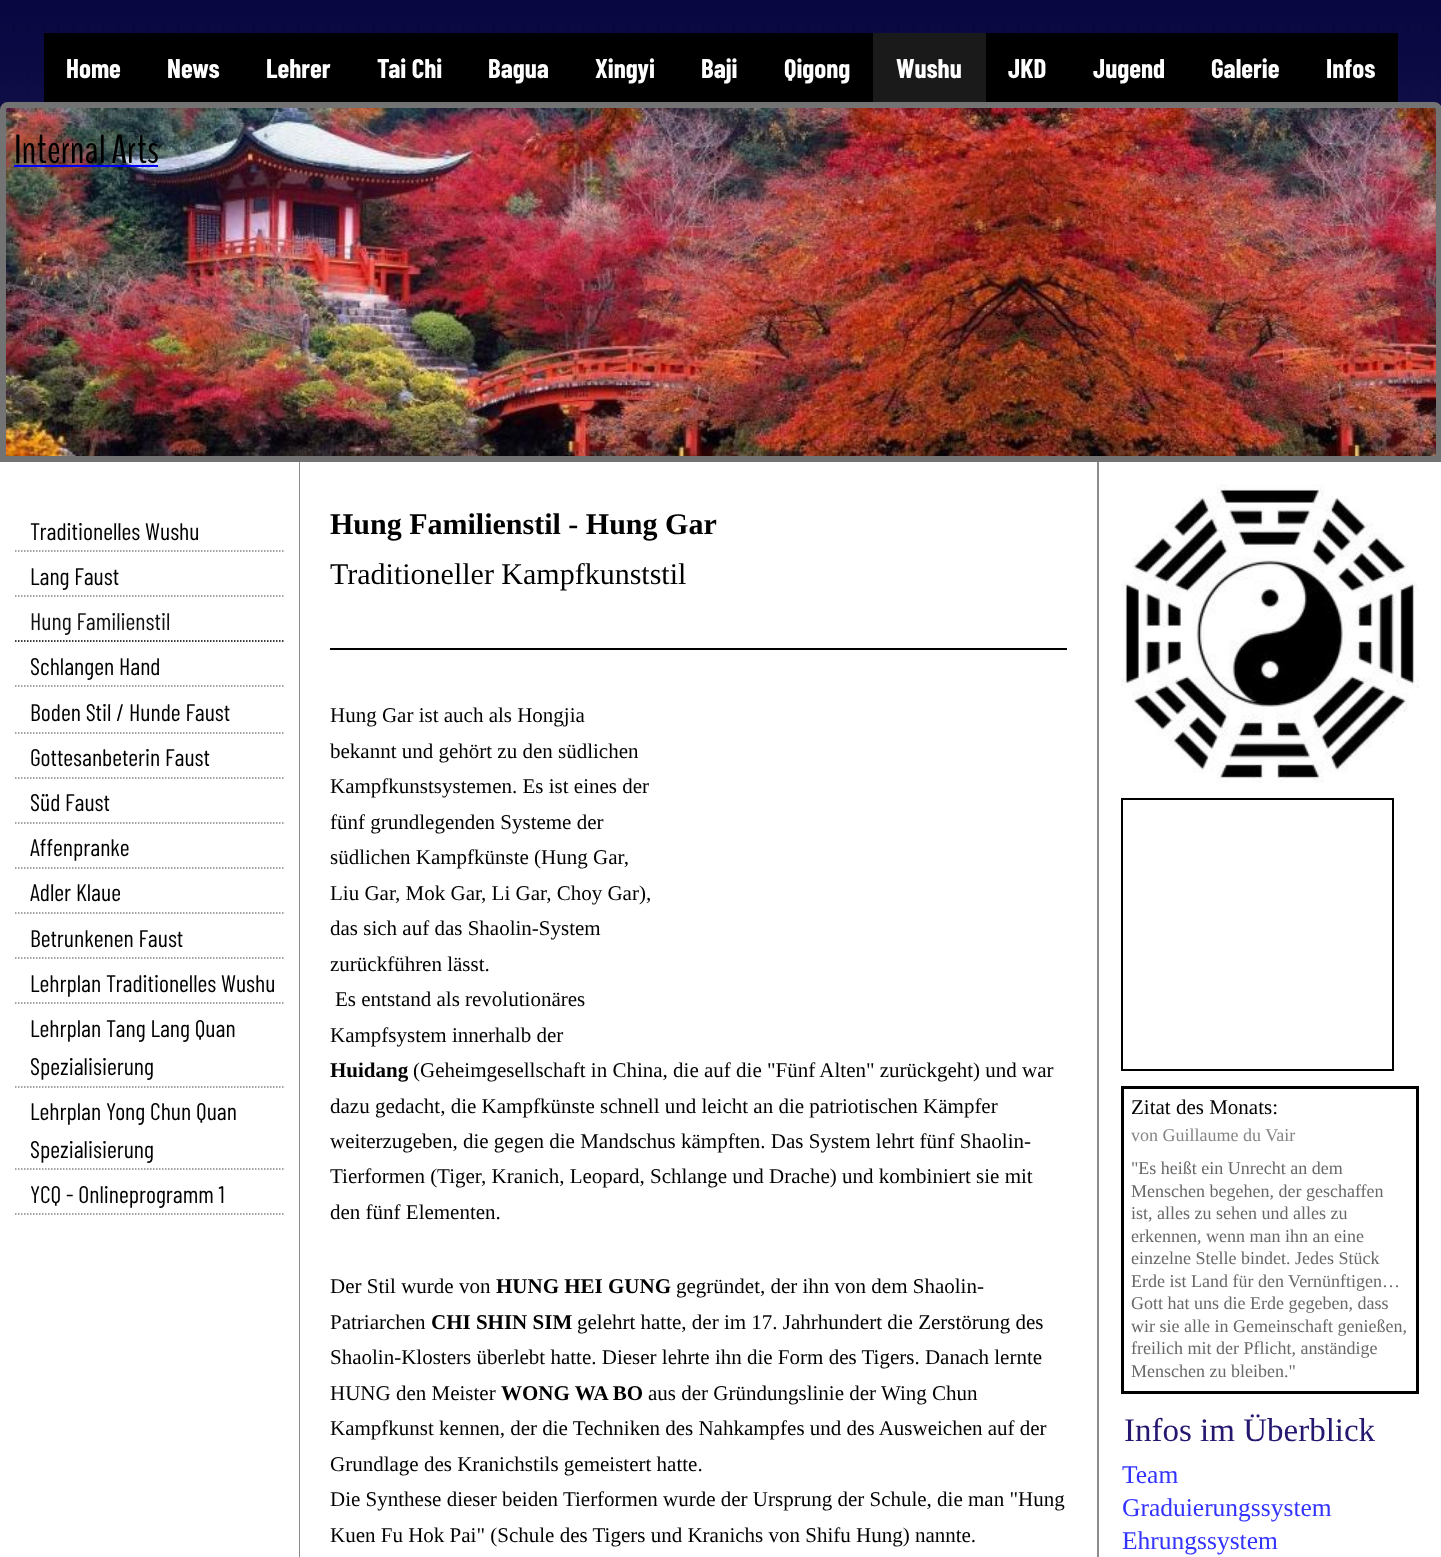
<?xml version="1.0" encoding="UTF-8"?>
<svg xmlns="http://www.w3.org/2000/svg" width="1441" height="1557">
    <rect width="100%" height="100%" fill="#FFFFFF"/>
    <image x="0" y="0" width="1441" height="110" href="img_01.png"/>
    <rect x="44" y="33" width="829" height="69" fill="#000000"/>
    <text x="66" y="78" font-family="Barlow Condensed" font-size="27" font-weight="700" fill="#FFFFFF">Home</text>
    <text x="167" y="78" font-family="Barlow Condensed" font-size="27" font-weight="700" fill="#FFFFFF">News</text>
    <text x="266" y="78" font-family="Barlow Condensed" font-size="27" font-weight="700" fill="#FFFFFF">Lehrer</text>
    <text x="377" y="78" font-family="Barlow Condensed" font-size="27" font-weight="700" fill="#FFFFFF">Tai Chi</text>
    <text x="488" y="78" font-family="Barlow Condensed" font-size="27" font-weight="700" fill="#FFFFFF">Bagua</text>
    <text x="595" y="78" font-family="Barlow Condensed" font-size="27" font-weight="700" fill="#FFFFFF">Xingyi</text>
    <text x="701" y="78" font-family="Barlow Condensed" font-size="27" font-weight="700" fill="#FFFFFF">Baji</text>
    <text x="784" y="78" font-family="Barlow Condensed" font-size="27" font-weight="700" fill="#FFFFFF">Qigong</text>
    <rect x="873" y="33" width="113" height="69" fill="#1A1A1A"/>
    <text x="896" y="78" font-family="Barlow Condensed" font-size="27" font-weight="700" fill="#FFFFFF">Wushu</text>
    <rect x="986" y="33" width="412" height="69" fill="#000000"/>
    <text x="1008" y="78" font-family="Barlow Condensed" font-size="27" font-weight="700" fill="#FFFFFF">JKD</text>
    <text x="1093" y="78" font-family="Barlow Condensed" font-size="27" font-weight="700" fill="#FFFFFF">Jugend</text>
    <text x="1211" y="78" font-family="Barlow Condensed" font-size="27" font-weight="700" fill="#FFFFFF">Galerie</text>
    <text x="1326" y="78" font-family="Barlow Condensed" font-size="27" font-weight="700" fill="#FFFFFF">Infos</text>
    <image x="6" y="108" width="1430" height="348" href="img_02.png"/>
    <path d="M 8 105 H 1434 C 1437 105 1439 107 1439 110 V 459 H 3 V 110 C 3 107 5 105 8 105 Z" fill="none" stroke="#737373" stroke-width="6"/>
    <text x="14" y="163" font-family="BenchNine" font-size="40.5" fill="#000000">Internal Arts</text>
    <rect x="14" y="165" width="144" height="2" fill="#0000FF"/>
    <rect x="299" y="462" width="1" height="1095" fill="#8C8C8C"/>
    <path d="M 15 551 H 283.5" fill="none" stroke="#858585" stroke-width="1.5" stroke-dasharray="1.5 1.5"/>
    <text x="30" y="540" font-family="Barlow Condensed" font-size="24" fill="#000000">Traditionelles Wushu</text>
    <path d="M 15 596 H 283.5" fill="none" stroke="#858585" stroke-width="1.5" stroke-dasharray="1.5 1.5"/>
    <text x="30" y="585" font-family="Barlow Condensed" font-size="24" fill="#000000">Lang Faust</text>
    <path d="M 15 641 H 283.5" fill="none" stroke="#000000" stroke-width="1.5" stroke-dasharray="1.5 1.5"/>
    <text x="30" y="630" font-family="Barlow Condensed" font-size="24" fill="#121212">Hung Familienstil</text>
    <path d="M 15 686 H 283.5" fill="none" stroke="#858585" stroke-width="1.5" stroke-dasharray="1.5 1.5"/>
    <text x="30" y="675" font-family="Barlow Condensed" font-size="24" fill="#000000">Schlangen Hand</text>
    <path d="M 15 733 H 283.5" fill="none" stroke="#858585" stroke-width="1.5" stroke-dasharray="1.5 1.5"/>
    <text x="30" y="721" font-family="Barlow Condensed" font-size="24" fill="#000000">Boden Stil / Hunde Faust</text>
    <path d="M 15 778 H 283.5" fill="none" stroke="#858585" stroke-width="1.5" stroke-dasharray="1.5 1.5"/>
    <text x="30" y="766" font-family="Barlow Condensed" font-size="24" fill="#000000">Gottesanbeterin Faust</text>
    <path d="M 15 823 H 283.5" fill="none" stroke="#858585" stroke-width="1.5" stroke-dasharray="1.5 1.5"/>
    <text x="30" y="811" font-family="Barlow Condensed" font-size="24" fill="#000000">Süd Faust</text>
    <path d="M 15 868 H 283.5" fill="none" stroke="#858585" stroke-width="1.5" stroke-dasharray="1.5 1.5"/>
    <text x="30" y="856" font-family="Barlow Condensed" font-size="24" fill="#000000">Affenpranke</text>
    <path d="M 15 913 H 283.5" fill="none" stroke="#858585" stroke-width="1.5" stroke-dasharray="1.5 1.5"/>
    <text x="30" y="901" font-family="Barlow Condensed" font-size="24" fill="#000000">Adler Klaue</text>
    <path d="M 15 958 H 283.5" fill="none" stroke="#858585" stroke-width="1.5" stroke-dasharray="1.5 1.5"/>
    <text x="30" y="947" font-family="Barlow Condensed" font-size="24" fill="#000000">Betrunkenen Faust</text>
    <path d="M 15 1003 H 283.5" fill="none" stroke="#858585" stroke-width="1.5" stroke-dasharray="1.5 1.5"/>
    <text x="30" y="992" font-family="Barlow Condensed" font-size="24" fill="#000000">Lehrplan Traditionelles Wushu</text>
    <path d="M 15 1087 H 283.5" fill="none" stroke="#858585" stroke-width="1.5" stroke-dasharray="1.5 1.5"/>
    <text font-family="Barlow Condensed" font-size="24" fill="#000000">
        <tspan x="30" y="1037">Lehrplan Tang Lang Quan</tspan>
        <tspan x="30" y="1075">Spezialisierung</tspan>
    </text>
    <path d="M 15 1169 H 283.5" fill="none" stroke="#858585" stroke-width="1.5" stroke-dasharray="1.5 1.5"/>
    <text font-family="Barlow Condensed" font-size="24" fill="#000000">
        <tspan x="30" y="1120">Lehrplan Yong Chun Quan</tspan>
        <tspan x="30" y="1158">Spezialisierung</tspan>
    </text>
    <path d="M 15 1214 H 283.5" fill="none" stroke="#858585" stroke-width="1.5" stroke-dasharray="1.5 1.5"/>
    <text x="30" y="1203" font-family="Barlow Condensed" font-size="24" fill="#000000">YCQ - Onlineprogramm 1</text>
    <text x="330" y="534" font-family="Liberation Serif" font-size="30" font-weight="700" fill="#000000">Hung Familienstil - Hung Gar</text>
    <text x="330" y="584" font-family="Liberation Serif" font-size="30" fill="#000000">Traditioneller Kampfkunststil</text>
    <rect x="330" y="648" width="737" height="2" fill="#000000"/>
    <text font-family="Liberation Serif" font-size="21" fill="#000000">
        <tspan x="330" y="722">Hung Gar ist auch als Hongjia</tspan>
        <tspan x="330" y="758">bekannt und gehört zu den südlichen</tspan>
        <tspan x="330" y="793">Kampfkunstsystemen. Es ist eines der</tspan>
        <tspan x="330" y="829">fünf grundlegenden Systeme der</tspan>
        <tspan x="330" y="864">südlichen Kampfkünste (Hung Gar,</tspan>
        <tspan x="330" y="900">Liu Gar, Mok Gar, Li Gar, Choy Gar),</tspan>
        <tspan x="330" y="935">das sich auf das Shaolin-System</tspan>
        <tspan x="330" y="971">zurückführen lässt.</tspan>
    </text>
    <text x="335" y="1006" font-family="Liberation Serif" font-size="21" fill="#000000">Es entstand als revolutionäres</text>
    <text x="330" y="1042" font-family="Liberation Serif" font-size="21" fill="#000000">Kampfsystem innerhalb der</text>
    <text x="330" y="1077" font-family="Liberation Serif" font-size="21" font-weight="700" fill="#000000">Huidang</text>
    <text x="413" y="1077" font-family="Liberation Serif" font-size="21" fill="#000000">(Geheimgesellschaft in China, die auf die "Fünf Alten" zurückgeht) und war</text>
    <text font-family="Liberation Serif" font-size="21" fill="#000000">
        <tspan x="330" y="1113">dazu gedacht, die Kampfkünste schnell und leicht an die patriotischen Kämpfer</tspan>
        <tspan x="330" y="1148">weiterzugeben, die gegen die Mandschus kämpften. Das System lehrt fünf Shaolin-</tspan>
        <tspan x="330" y="1183">Tierformen (Tiger, Kranich, Leopard, Schlange und Drache) und kombiniert sie mit</tspan>
        <tspan x="330" y="1219">den fünf Elementen.</tspan>
    </text>
    <text x="330" y="1293" font-family="Liberation Serif" font-size="21" fill="#000000">Der Stil wurde von</text>
    <text x="496" y="1293" font-family="Liberation Serif" font-size="21" font-weight="700" fill="#000000">HUNG HEI GUNG</text>
    <text x="676" y="1293" font-family="Liberation Serif" font-size="21" fill="#000000">gegründet, der ihn von dem Shaolin-</text>
    <text x="330" y="1329" font-family="Liberation Serif" font-size="21" fill="#000000">Patriarchen</text>
    <text x="431" y="1329" font-family="Liberation Serif" font-size="21" font-weight="700" fill="#000000">CHI SHIN SIM</text>
    <text x="577" y="1329" font-family="Liberation Serif" font-size="21" fill="#000000">gelehrt hatte, der im 17. Jahrhundert die Zerstörung des</text>
    <text font-family="Liberation Serif" font-size="21" fill="#000000">
        <tspan x="330" y="1364">Shaolin-Klosters überlebt hatte. Dieser lehrte ihn die Form des Tigers. Danach lernte</tspan>
        <tspan x="330" y="1400">HUNG den Meister</tspan>
    </text>
    <text x="501" y="1400" font-family="Liberation Serif" font-size="21" font-weight="700" fill="#000000">WONG WA BO</text>
    <text x="648" y="1400" font-family="Liberation Serif" font-size="21" fill="#000000">aus der Gründungslinie der Wing Chun</text>
    <text font-family="Liberation Serif" font-size="21" fill="#000000">
        <tspan x="330" y="1435">Kampfkunst kennen, der die Techniken des Nahkampfes und des Ausweichen auf der</tspan>
        <tspan x="330" y="1471">Grundlage des Kranichstils gemeistert hatte.</tspan>
        <tspan x="330" y="1506">Die Synthese dieser beiden Tierformen wurde der Ursprung der Schule, die man "Hung</tspan>
        <tspan x="330" y="1542">Kuen Fu Hok Pai" (Schule des Tigers und Kranichs von Shifu Hung) nannte.</tspan>
    </text>
    <rect x="1097" y="462" width="2" height="1095" fill="#8C8C8C"/>
    <image x="1121" y="484" width="298" height="299" href="img_03.png"/>
    <rect x="1122" y="799" width="271" height="271" fill="none" stroke="#000000" stroke-width="2"/>
    <rect x="1122.5" y="1087.5" width="295" height="305" fill="none" stroke="#000000" stroke-width="3"/>
    <text x="1131" y="1114" font-family="Liberation Serif" font-size="21" fill="#000000">Zitat des Monats:</text>
    <text x="1131" y="1141" font-family="Liberation Serif" font-size="18" fill="#858585">von Guillaume du Vair</text>
    <text font-family="Liberation Serif" font-size="18" fill="#686868">
        <tspan x="1131" y="1174">"Es heißt ein Unrecht an dem</tspan>
        <tspan x="1131" y="1197">Menschen begehen, der geschaffen</tspan>
        <tspan x="1131" y="1219">ist, alles zu sehen und alles zu</tspan>
        <tspan x="1131" y="1242">erkennen, wenn man ihn an eine</tspan>
        <tspan x="1131" y="1264">einzelne Stelle bindet. Jedes Stück</tspan>
        <tspan x="1131" y="1287">Erde ist Land für den Vernünftigen…</tspan>
        <tspan x="1131" y="1309">Gott hat uns die Erde gegeben, dass</tspan>
        <tspan x="1131" y="1332">wir sie alle in Gemeinschaft genießen,</tspan>
        <tspan x="1131" y="1354">freilich mit der Pflicht, anständige</tspan>
        <tspan x="1131" y="1377">Menschen zu bleiben."</tspan>
    </text>
    <text x="1124" y="1441" font-family="Liberation Serif" font-size="33" fill="#26166F">Infos im Überblick</text>
    <text font-family="Liberation Serif" font-size="25.5" fill="#3333FF">
        <tspan x="1122" y="1483">Team</tspan>
        <tspan x="1122" y="1516">Graduierungssystem</tspan>
        <tspan x="1122" y="1549">Ehrungssystem</tspan>
    </text>
</svg>
